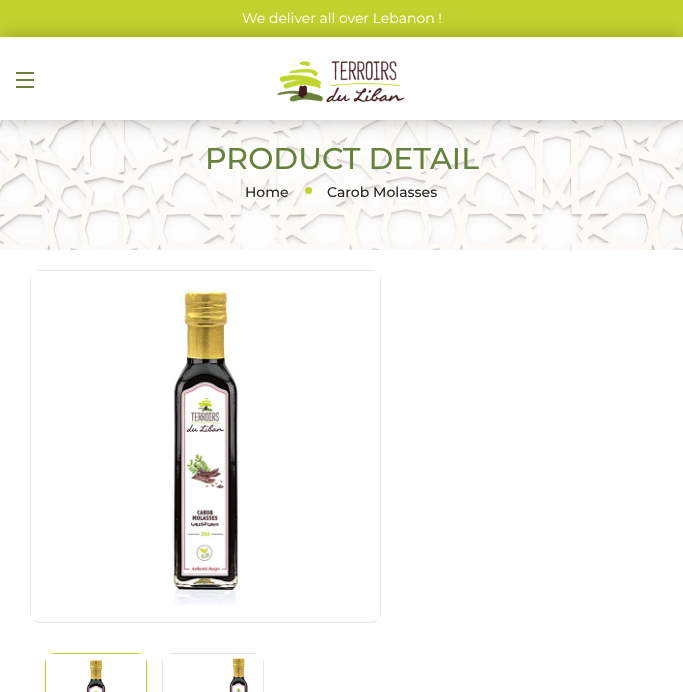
<?xml version="1.0" encoding="UTF-8"?>
<svg xmlns="http://www.w3.org/2000/svg" width="683" height="692">
    <defs>
        <clipPath id="clip1"><path d="M 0 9 H 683 V 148 H 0 Z M 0 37 H 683 V 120 H 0 Z" clip-rule="evenodd"/></clipPath>
        <filter id="blur1" x="-50%" y="-200%" width="200%" height="500%"><feGaussianBlur stdDeviation="9"/></filter>
    </defs>
    <rect width="100%" height="100%" fill="#FFFFFF"/>
    <rect x="0" y="0" width="683" height="37" fill="#C1D22F"/>
    <image x="0" y="120" width="683" height="130" href="img_02.png"/>
    <g clip-path="url(#clip1)">
        <rect x="0" y="37" width="683" height="83" fill="#000000" fill-opacity="0.25" filter="url(#blur1)"/>
    </g>
    <rect x="16" y="72" width="18" height="2" fill="#6C803C"/>
    <rect x="16" y="79" width="18" height="2" fill="#6C803C"/>
    <rect x="16" y="86" width="18" height="2" fill="#6C803C"/>
    <image x="277" y="61" width="128" height="42" href="img_01.png"/>
    <text x="242" y="23" font-family="Montserrat" font-size="14" fill="#FFFFFF">We deliver all over Lebanon !</text>
    <text x="205" y="169" font-family="Montserrat" font-size="30" font-weight="500" fill="#67803B">PRODUCT DETAIL</text>
    <text x="245" y="197" font-family="Montserrat" font-size="14" font-weight="500" fill="#232323">Home</text>
    <circle cx="308.5" cy="190.5" r="3.5" fill="#C1D22F"/>
    <text x="327" y="197" font-family="Montserrat" font-size="14" font-weight="500" fill="#232323">Carob Molasses</text>
    <rect x="30.5" y="270.5" width="350" height="352" rx="9.5" fill="none" stroke="#E4E5EF"/>
    <image x="31" y="271" width="349" height="349" href="img_03.png"/>
    <rect x="45.5" y="653.5" width="101" height="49" rx="9.5" fill="none" stroke="#C1D22F"/>
    <image x="46" y="654" width="100" height="38" href="img_04.png"/>
    <rect x="162.5" y="653.5" width="101" height="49" rx="9.5" fill="none" stroke="#E4E5EF"/>
    <image x="163" y="654" width="100" height="38" href="img_05.png"/>
</svg>
